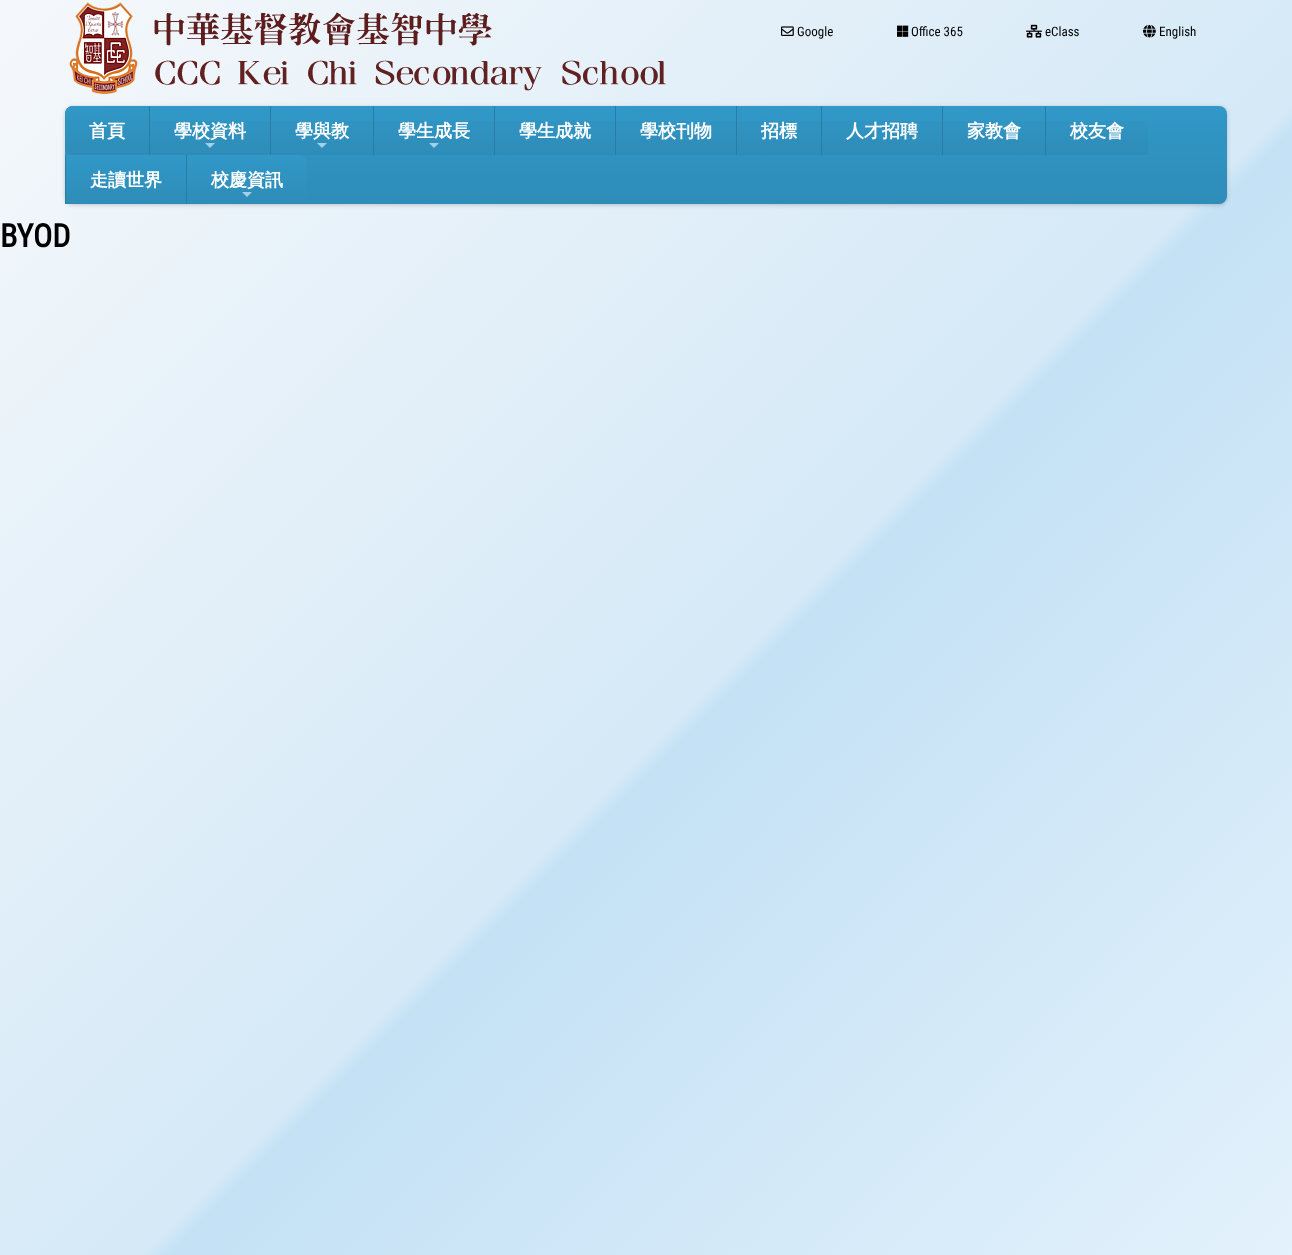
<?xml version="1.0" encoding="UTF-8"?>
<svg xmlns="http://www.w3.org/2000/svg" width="1292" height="1255">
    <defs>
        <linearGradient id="g1" gradientUnits="userSpaceOnUse" x1="-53" y1="53" x2="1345" y2="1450"><stop offset="0" stop-color="#F5F8FB"/><stop offset="0.5" stop-color="#D5E9F7"/><stop offset="0.51" stop-color="#C4E1F5"/><stop offset="1" stop-color="#EAF5FD"/></linearGradient>
        <filter id="blur1" x="-50%" y="-200%" width="200%" height="500%"><feGaussianBlur stdDeviation="2"/></filter>
        <linearGradient id="g2" gradientUnits="userSpaceOnUse" x1="646" y1="106" x2="646" y2="204"><stop offset="0" stop-color="#3198C7"/><stop offset="1" stop-color="#2E8CB8"/></linearGradient>
        <linearGradient id="g3" gradientUnits="userSpaceOnUse" x1="107" y1="106" x2="107" y2="155"><stop offset="0" stop-color="#3198C7"/><stop offset="1" stop-color="#2E8CB8"/></linearGradient>
        <linearGradient id="g4" gradientUnits="userSpaceOnUse" x1="210" y1="106" x2="210" y2="155"><stop offset="0" stop-color="#3198C7"/><stop offset="1" stop-color="#2E8CB8"/></linearGradient>
        <linearGradient id="g5" gradientUnits="userSpaceOnUse" x1="322" y1="106" x2="322" y2="155"><stop offset="0" stop-color="#3198C7"/><stop offset="1" stop-color="#2E8CB8"/></linearGradient>
        <linearGradient id="g6" gradientUnits="userSpaceOnUse" x1="434" y1="106" x2="434" y2="155"><stop offset="0" stop-color="#3198C7"/><stop offset="1" stop-color="#2E8CB8"/></linearGradient>
        <linearGradient id="g7" gradientUnits="userSpaceOnUse" x1="555" y1="106" x2="555" y2="155"><stop offset="0" stop-color="#3198C7"/><stop offset="1" stop-color="#2E8CB8"/></linearGradient>
        <linearGradient id="g8" gradientUnits="userSpaceOnUse" x1="676" y1="106" x2="676" y2="155"><stop offset="0" stop-color="#3198C7"/><stop offset="1" stop-color="#2E8CB8"/></linearGradient>
        <linearGradient id="g9" gradientUnits="userSpaceOnUse" x1="779" y1="106" x2="779" y2="155"><stop offset="0" stop-color="#3198C7"/><stop offset="1" stop-color="#2E8CB8"/></linearGradient>
        <linearGradient id="g10" gradientUnits="userSpaceOnUse" x1="882" y1="106" x2="882" y2="155"><stop offset="0" stop-color="#3198C7"/><stop offset="1" stop-color="#2E8CB8"/></linearGradient>
        <linearGradient id="g11" gradientUnits="userSpaceOnUse" x1="994" y1="106" x2="994" y2="155"><stop offset="0" stop-color="#3198C7"/><stop offset="1" stop-color="#2E8CB8"/></linearGradient>
        <linearGradient id="g12" gradientUnits="userSpaceOnUse" x1="1097" y1="106" x2="1097" y2="155"><stop offset="0" stop-color="#3198C7"/><stop offset="1" stop-color="#2E8CB8"/></linearGradient>
        <linearGradient id="g13" gradientUnits="userSpaceOnUse" x1="126" y1="155" x2="126" y2="204"><stop offset="0" stop-color="#3198C7"/><stop offset="1" stop-color="#2E8CB8"/></linearGradient>
        <linearGradient id="g14" gradientUnits="userSpaceOnUse" x1="247" y1="155" x2="247" y2="204"><stop offset="0" stop-color="#3198C7"/><stop offset="1" stop-color="#2E8CB8"/></linearGradient>
    </defs>
    <rect width="100%" height="100%" fill="#FFFFFF"/>
    <rect x="0" y="0" width="1292" height="1255" fill="url(#g1)"/>
    <image x="69" y="2" width="597" height="93" href="img_01.png"/>
    <image x="781" y="26" width="13" height="10" href="img_02.png"/>
    <text x="797" y="36" font-family="Roboto Condensed" font-size="13" fill="#000000">Google</text>
    <image x="897" y="25" width="12" height="12" href="img_03.png"/>
    <text x="911" y="36" font-family="Roboto Condensed" font-size="13" fill="#000000">Office 365</text>
    <image x="1026" y="24" width="16" height="14" href="img_04.png"/>
    <text x="1045" y="36" font-family="Roboto Condensed" font-size="13" fill="#000000">eClass</text>
    <image x="1143" y="24" width="13" height="14" href="img_05.png"/>
    <text x="1159" y="36" font-family="Roboto Condensed" font-size="13" fill="#000000">English</text>
    <rect x="65" y="107" width="1162" height="98" rx="8" fill="#000000" fill-opacity="0.2" filter="url(#blur1)"/>
    <rect x="65" y="106" width="1162" height="98" rx="8" fill="url(#g2)"/>
    <path d="M 73 106 H 149 V 155 H 73 C 68.5 155 65 151.5 65 147 V 114 C 65 109.5 68.5 106 73 106 Z" fill="url(#g3)"/>
    <text x="89" y="137" font-family="WenQuanYi Zen Hei" font-size="18" font-weight="700" fill="#FFFFFF">首頁</text>
    <rect x="149" y="106" width="1" height="49" fill="#297CA2"/>
    <rect x="150" y="121" width="120" height="34" fill="url(#g4)"/>
    <text x="174" y="137" font-family="WenQuanYi Zen Hei" font-size="18" font-weight="700" fill="#FFFFFF">學校資料</text>
    <path d="M 205 143 H 215 L 210 148 Z" fill="#A1D1E8"/>
    <rect x="270" y="106" width="1" height="49" fill="#297CA2"/>
    <rect x="271" y="121" width="102" height="34" fill="url(#g5)"/>
    <text x="295" y="137" font-family="WenQuanYi Zen Hei" font-size="18" font-weight="700" fill="#FFFFFF">學與教</text>
    <path d="M 317 143 H 327 L 322 148 Z" fill="#A1D1E8"/>
    <rect x="373" y="106" width="1" height="49" fill="#297CA2"/>
    <rect x="374" y="121" width="120" height="34" fill="url(#g6)"/>
    <text x="398" y="137" font-family="WenQuanYi Zen Hei" font-size="18" font-weight="700" fill="#FFFFFF">學生成長</text>
    <path d="M 429 143 H 439 L 434 148 Z" fill="#A1D1E8"/>
    <rect x="494" y="106" width="1" height="49" fill="#297CA2"/>
    <rect x="495" y="121" width="120" height="34" fill="url(#g7)"/>
    <text x="519" y="137" font-family="WenQuanYi Zen Hei" font-size="18" font-weight="700" fill="#FFFFFF">學生成就</text>
    <rect x="615" y="106" width="1" height="49" fill="#297CA2"/>
    <rect x="616" y="121" width="120" height="34" fill="url(#g8)"/>
    <text x="640" y="137" font-family="WenQuanYi Zen Hei" font-size="18" font-weight="700" fill="#FFFFFF">學校刊物</text>
    <rect x="736" y="106" width="1" height="49" fill="#297CA2"/>
    <rect x="737" y="121" width="84" height="34" fill="url(#g9)"/>
    <text x="761" y="137" font-family="WenQuanYi Zen Hei" font-size="18" font-weight="700" fill="#FFFFFF">招標</text>
    <rect x="821" y="106" width="1" height="49" fill="#297CA2"/>
    <rect x="822" y="121" width="120" height="34" fill="url(#g10)"/>
    <text x="846" y="137" font-family="WenQuanYi Zen Hei" font-size="18" font-weight="700" fill="#FFFFFF">人才招聘</text>
    <rect x="942" y="106" width="1" height="49" fill="#297CA2"/>
    <rect x="943" y="121" width="102" height="34" fill="url(#g11)"/>
    <text x="967" y="137" font-family="WenQuanYi Zen Hei" font-size="18" font-weight="700" fill="#FFFFFF">家教會</text>
    <rect x="1045" y="106" width="1" height="49" fill="#297CA2"/>
    <rect x="1046" y="121" width="102" height="34" fill="url(#g12)"/>
    <text x="1070" y="137" font-family="WenQuanYi Zen Hei" font-size="18" font-weight="700" fill="#FFFFFF">校友會</text>
    <rect x="65" y="155" width="1" height="49" fill="#297CA2"/>
    <rect x="66" y="155" width="120" height="49" fill="url(#g13)"/>
    <text x="90" y="186" font-family="WenQuanYi Zen Hei" font-size="18" font-weight="700" fill="#FFFFFF">走讀世界</text>
    <rect x="186" y="155" width="1" height="49" fill="#297CA2"/>
    <path d="M 187 155 H 299 C 303.5 155 307 158.5 307 163 V 196 C 307 200.5 303.5 204 299 204 H 187 Z" fill="url(#g14)"/>
    <text x="211" y="186" font-family="WenQuanYi Zen Hei" font-size="18" font-weight="700" fill="#FFFFFF">校慶資訊</text>
    <path d="M 242 192 H 252 L 247 197 Z" fill="#A1D1E8"/>
    <text x="0" y="247" font-family="Roboto Condensed" font-size="32" font-weight="700" fill="#000000">BYOD</text>
</svg>
